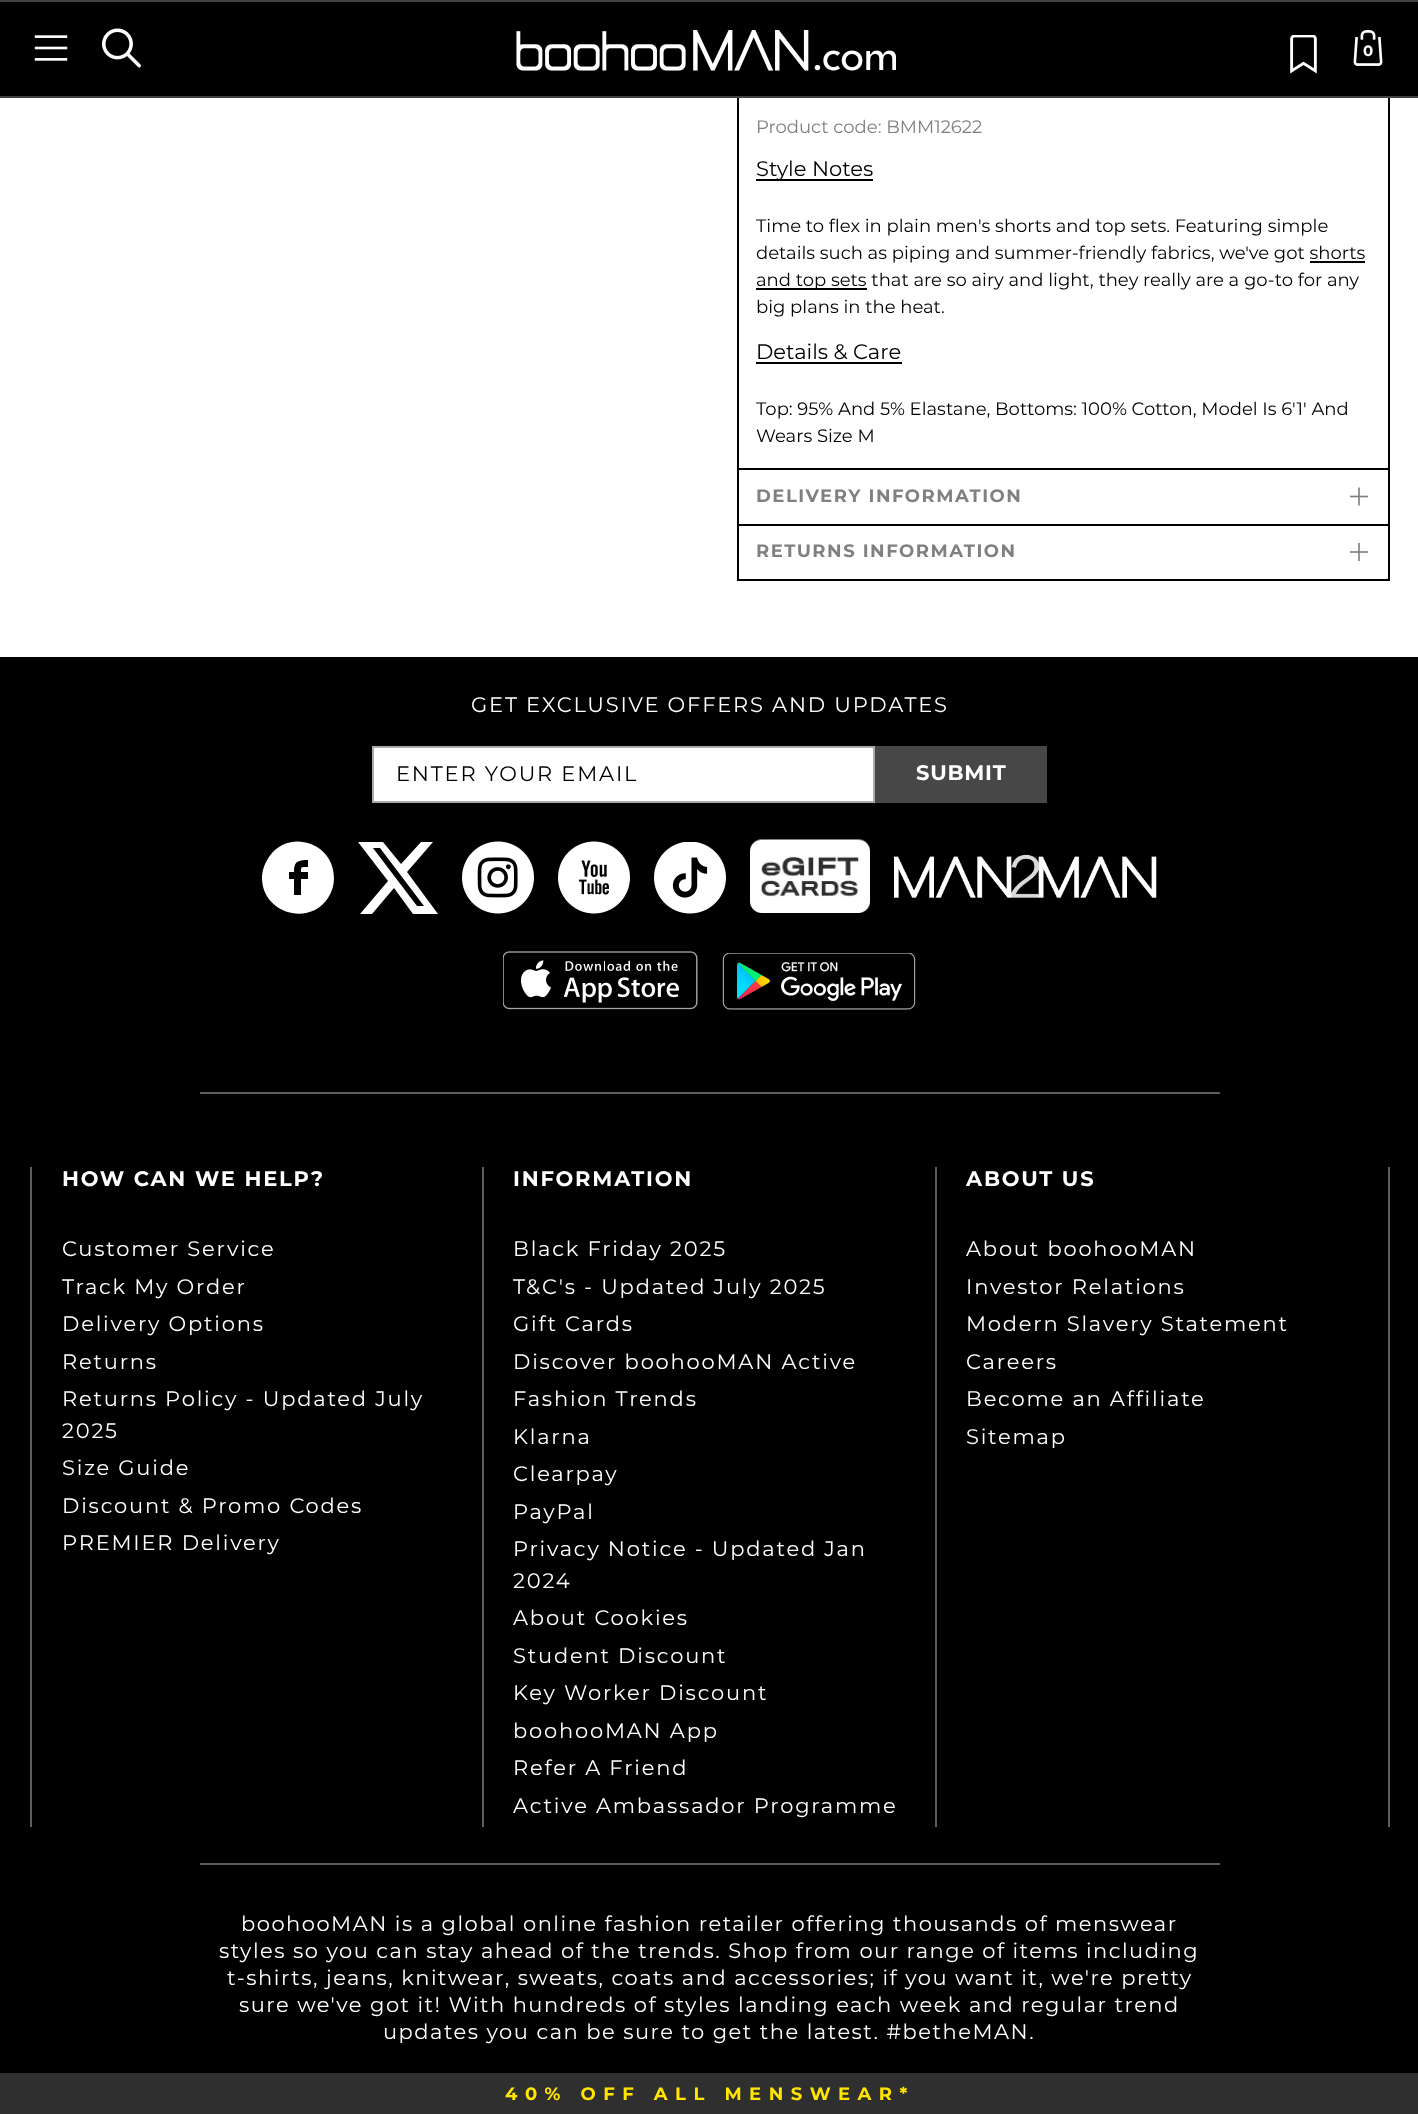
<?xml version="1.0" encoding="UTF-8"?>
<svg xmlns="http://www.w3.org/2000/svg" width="1418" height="2114">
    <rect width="100%" height="100%" fill="#FFFFFF"/>
    <rect x="0" y="2" width="1418" height="94" fill="#000000"/>
    <rect x="0" y="0" width="1418" height="2" fill="#414141"/>
    <rect x="0" y="96" width="1418" height="2" fill="#414141"/>
    <image x="34" y="35" width="34" height="26" href="img_01.png"/>
    <image x="102" y="28" width="39" height="40" href="img_02.png"/>
    <image x="516" y="30" width="380" height="41" href="img_03.png"/>
    <image x="1290" y="35" width="27" height="39" href="img_04.png"/>
    <image x="1353" y="30" width="30" height="36" href="img_05.png"/>
    <text x="1363" y="56" font-family="Montserrat" font-size="15" font-weight="700" fill="#FFFFFF">0</text>
    <rect x="1388" y="98" width="2" height="483" fill="#000000"/>
    <rect x="737" y="579" width="652" height="2" fill="#000000"/>
    <rect x="737" y="98" width="2" height="483" fill="#000000"/>
    <text x="756" y="133" font-family="Montserrat" font-size="18" fill="#808080">Product code: BMM12622</text>
    <rect x="756" y="179" width="117" height="2" fill="#000000"/>
    <text x="756" y="176" font-family="Montserrat" font-size="21" fill="#000000">Style Notes</text>
    <text font-family="Montserrat" font-size="18" fill="#000000">
        <tspan x="756" y="232">Time to flex in plain men's shorts and top sets. Featuring simple</tspan>
        <tspan x="756" y="259">details such as piping and summer-friendly fabrics, we've got shorts</tspan>
    </text>
    <rect x="756" y="288" width="111" height="2" fill="#000000"/>
    <text x="756" y="286" font-family="Montserrat" font-size="18" fill="#000000">and top sets that are so airy and light, they really are a go-to for any</text>
    <rect x="1310" y="261" width="55" height="2" fill="#000000"/>
    <text x="756" y="313" font-family="Montserrat" font-size="18" fill="#000000">big plans in the heat.</text>
    <text x="756" y="359" font-family="Montserrat" font-size="21" fill="#000000">Details &amp; Care</text>
    <rect x="756" y="362" width="146" height="2" fill="#000000"/>
    <text font-family="Montserrat" font-size="18" fill="#000000">
        <tspan x="756" y="415">Top: 95% And 5% Elastane, Bottoms: 100% Cotton, Model Is 6'1' And</tspan>
        <tspan x="756" y="442">Wears Size M</tspan>
    </text>
    <rect x="738" y="468" width="650" height="2" fill="#000000"/>
    <text x="756" y="502" font-family="Montserrat" font-size="18" font-weight="700" letter-spacing="1.5" fill="#808080">DELIVERY INFORMATION</text>
    <image x="1350" y="487" width="18" height="19" href="img_06.png"/>
    <rect x="738" y="524" width="650" height="2" fill="#000000"/>
    <text x="756" y="557" font-family="Montserrat" font-size="18" font-weight="700" letter-spacing="1.5" fill="#808080">RETURNS INFORMATION</text>
    <image x="1350" y="543" width="18" height="18" href="img_07.png"/>
    <rect x="0" y="657" width="1418" height="1416" fill="#000000"/>
    <text x="471" y="712" font-family="Montserrat" font-size="21" letter-spacing="1.8" fill="#FFFFFF">GET EXCLUSIVE OFFERS AND UPDATES</text>
    <rect x="373" y="747" width="501" height="55" fill="#FFFFFF" stroke="#AAAAAA" stroke-width="2"/>
    <text x="396" y="781" font-family="Montserrat" font-size="21" letter-spacing="1.8" fill="#000000">ENTER YOUR EMAIL</text>
    <rect x="875" y="746" width="172" height="57" fill="#474747"/>
    <text x="916" y="780" font-family="Montserrat" font-size="21" font-weight="700" letter-spacing="0.75" fill="#FFFFFF">SUBMIT</text>
    <path d="M 262 878 C 262 870 265 863 269 857 C 288 828 334 842 334 878 C 334 885 332 892 328 898 C 309 927 262 913 262 878 Z M 289 879 H 294 V 895 H 301 V 879 H 308 V 872 H 301 C 301 866 301 867 308 867 V 860 C 297 860 294 862 294 872 H 289 Z" fill="#FFFFFF"/>
    <path d="M 421 842 H 433 L 407 872 L 438 914 H 413 L 394 888 L 372 914 H 360 L 388 881 L 358 842 H 383 L 401 864 Z M 417 906 H 424 L 380 848 H 373 Z" fill="#FFFFFF"/>
    <image x="462" y="841" width="72" height="73" href="img_08.png"/>
    <image x="558" y="841" width="72" height="73" href="img_09.png"/>
    <image x="654" y="842" width="72" height="72" href="img_10.png"/>
    <image x="750" y="839" width="120" height="74" href="img_11.png"/>
    <image x="894" y="854" width="263" height="44" href="img_12.png"/>
    <image x="503" y="951" width="195" height="59" href="img_13.png"/>
    <image x="722" y="953" width="194" height="57" href="img_14.png"/>
    <rect x="200" y="1092" width="1020" height="2" fill="#5D5D5D"/>
    <rect x="482" y="1167" width="2" height="660" fill="#5D5D5D"/>
    <rect x="30" y="1167" width="2" height="660" fill="#5D5D5D"/>
    <text x="62" y="1186" font-family="Montserrat" font-size="21" font-weight="700" letter-spacing="1.8" fill="#FFFFFF">HOW CAN WE HELP?</text>
    <text font-family="Montserrat" font-size="21" letter-spacing="1.8" fill="#FFFFFF">
        <tspan x="62" y="1256">Customer Service</tspan>
        <tspan x="62" y="1294">Track My Order</tspan>
        <tspan x="62" y="1331">Delivery Options</tspan>
        <tspan x="62" y="1369">Returns</tspan>
        <tspan x="62" y="1406">Returns Policy - Updated July</tspan>
        <tspan x="62" y="1438">2025</tspan>
        <tspan x="62" y="1475">Size Guide</tspan>
        <tspan x="62" y="1513">Discount &amp; Promo Codes</tspan>
        <tspan x="62" y="1550">PREMIER Delivery</tspan>
    </text>
    <rect x="935" y="1167" width="2" height="660" fill="#5D5D5D"/>
    <text x="513" y="1186" font-family="Montserrat" font-size="21" font-weight="700" letter-spacing="1.8" fill="#FFFFFF">INFORMATION</text>
    <text font-family="Montserrat" font-size="21" letter-spacing="1.8" fill="#FFFFFF">
        <tspan x="513" y="1256">Black Friday 2025</tspan>
        <tspan x="513" y="1294">T&amp;C's - Updated July 2025</tspan>
        <tspan x="513" y="1331">Gift Cards</tspan>
        <tspan x="513" y="1369">Discover boohooMAN Active</tspan>
        <tspan x="513" y="1406">Fashion Trends</tspan>
        <tspan x="513" y="1444">Klarna</tspan>
        <tspan x="513" y="1481">Clearpay</tspan>
        <tspan x="513" y="1519">PayPal</tspan>
        <tspan x="513" y="1556">Privacy Notice - Updated Jan</tspan>
        <tspan x="513" y="1588">2024</tspan>
        <tspan x="513" y="1625">About Cookies</tspan>
        <tspan x="513" y="1663">Student Discount</tspan>
        <tspan x="513" y="1700">Key Worker Discount</tspan>
        <tspan x="513" y="1738">boohooMAN App</tspan>
        <tspan x="513" y="1775">Refer A Friend</tspan>
        <tspan x="513" y="1813">Active Ambassador Programme</tspan>
    </text>
    <rect x="1388" y="1167" width="2" height="660" fill="#5D5D5D"/>
    <text x="966" y="1186" font-family="Montserrat" font-size="21" font-weight="700" letter-spacing="1.8" fill="#FFFFFF">ABOUT US</text>
    <text font-family="Montserrat" font-size="21" letter-spacing="1.8" fill="#FFFFFF">
        <tspan x="966" y="1256">About boohooMAN</tspan>
        <tspan x="966" y="1294">Investor Relations</tspan>
        <tspan x="966" y="1331">Modern Slavery Statement</tspan>
        <tspan x="966" y="1369">Careers</tspan>
        <tspan x="966" y="1406">Become an Affiliate</tspan>
        <tspan x="966" y="1444">Sitemap</tspan>
    </text>
    <rect x="200" y="1863" width="1020" height="2" fill="#5D5D5D"/>
    <text x="241" y="1931" font-family="Montserrat" font-size="21" letter-spacing="1.5" fill="#FFFFFF">boohooMAN is a global online fashion retailer offering thousands of menswear</text>
    <text x="219" y="1958" font-family="Montserrat" font-size="21" letter-spacing="1.5" fill="#FFFFFF">styles so you can stay ahead of the trends. Shop from our range of items including</text>
    <text x="227" y="1985" font-family="Montserrat" font-size="21" letter-spacing="1.5" fill="#FFFFFF">t-shirts, jeans, knitwear, sweats, coats and accessories; if you want it, we're pretty</text>
    <text x="239" y="2012" font-family="Montserrat" font-size="21" letter-spacing="1.5" fill="#FFFFFF">sure we've got it! With hundreds of styles landing each week and regular trend</text>
    <text x="383" y="2039" font-family="Montserrat" font-size="21" letter-spacing="1.5" fill="#FFFFFF">updates you can be sure to get the latest. #betheMAN.</text>
    <rect x="0" y="2073" width="1418" height="41" fill="#2F2F2F"/>
    <text x="505" y="2100" font-family="Montserrat" font-size="18" font-weight="700" letter-spacing="7.5" fill="#FFE500">40% OFF ALL MENSWEAR*</text>
</svg>
